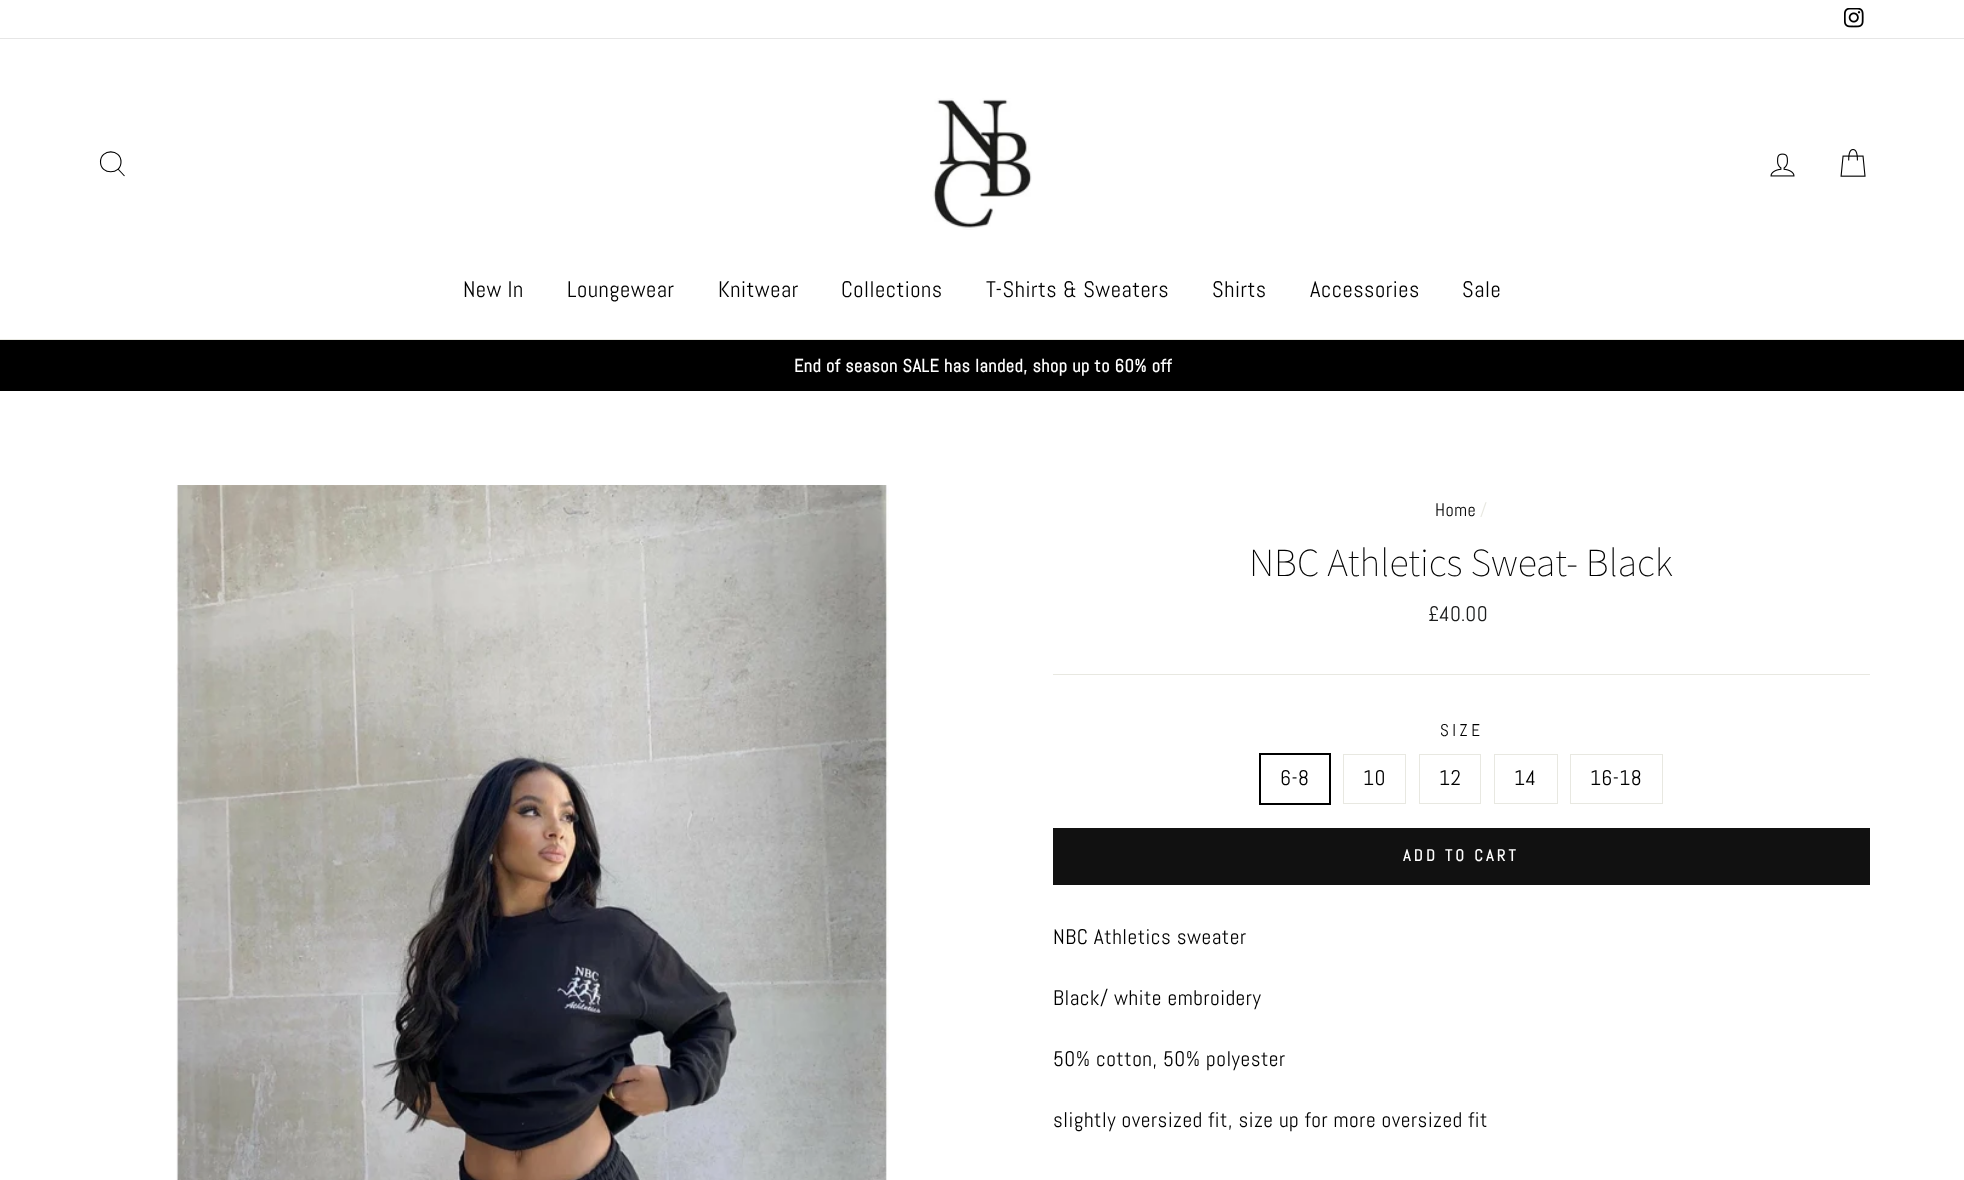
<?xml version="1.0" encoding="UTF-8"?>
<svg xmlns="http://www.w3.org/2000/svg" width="1964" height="1180">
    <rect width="100%" height="100%" fill="#FFFFFF"/>
    <image x="1844" y="8" width="20" height="20" href="img_01.png"/>
    <rect x="0" y="38" width="1964" height="1" fill="#E6E6E6"/>
    <rect x="0" y="339" width="1964" height="1" fill="#E8E8E1"/>
    <path d="M 121 162 C 121 175 100.5 175 100.5 162 C 100.5 148.5 121 148.5 121 162 Z M 124.5 176 L 118 169" fill="none" stroke="#000000" stroke-width="1.1"/>
    <image x="930" y="98" width="102" height="132" href="img_02.png"/>
    <image x="1770" y="153" width="25" height="24" href="img_03.png"/>
    <image x="1840" y="149" width="26" height="28" href="img_04.png"/>
    <text x="463" y="297" font-family="Abel" font-size="22.5" letter-spacing="0.53" fill="#000000">New In</text>
    <text x="567" y="297" font-family="Abel" font-size="22.5" letter-spacing="0.53" fill="#000000">Loungewear</text>
    <text x="718" y="297" font-family="Abel" font-size="22.5" letter-spacing="0.53" fill="#000000">Knitwear</text>
    <text x="841" y="297" font-family="Abel" font-size="22.5" letter-spacing="0.53" fill="#000000">Collections</text>
    <text x="986" y="297" font-family="Abel" font-size="22.5" letter-spacing="0.53" fill="#000000">T-Shirts &amp; Sweaters</text>
    <text x="1212" y="297" font-family="Abel" font-size="22.5" letter-spacing="0.53" fill="#000000">Shirts</text>
    <text x="1310" y="297" font-family="Abel" font-size="22.5" letter-spacing="0.53" fill="#000000">Accessories</text>
    <text x="1462" y="297" font-family="Abel" font-size="22.5" letter-spacing="0.53" fill="#000000">Sale</text>
    <rect x="0" y="340" width="1964" height="51" fill="#000000"/>
    <text x="794" y="372" font-family="Abel" font-size="18.1" font-weight="700" letter-spacing="0.53" fill="#FFFFFF">End of season SALE has landed, shop up to 60% off</text>
    <image x="176" y="485" width="713" height="695" href="img_05.png"/>
    <text x="1435" y="516" font-family="Abel" font-size="18.1" letter-spacing="0.53" fill="#000000">Home</text>
    <text x="1480" y="516" font-family="Abel" font-size="18.1" letter-spacing="0.53" fill="#E8E8E1">/</text>
    <text x="1249" y="576" font-family="Assistant" font-size="39.75" font-weight="200" fill="#000000">NBC Athletics Sweat- Black</text>
    <text x="1428" y="621" font-family="Abel" font-size="21.25" letter-spacing="0.53" fill="#1C1D1D">£40.00</text>
    <rect x="1053" y="674" width="817" height="1" fill="#E8E8E1"/>
    <text x="1440" y="736" font-family="Abel" font-size="17" letter-spacing="3.5" fill="#000000">SIZE</text>
    <rect x="1260.5" y="754.5" width="69" height="49" fill="none" stroke="#000000" stroke-width="3"/>
    <rect x="1261" y="755" width="68" height="48" fill="#FFFFFF"/>
    <text x="1280" y="785" font-family="Abel" font-size="21.25" letter-spacing="0.53" fill="#000000">6-8</text>
    <rect x="1343.5" y="754.5" width="62" height="49" fill="none" stroke="#E8E8E1"/>
    <text x="1363" y="785" font-family="Abel" font-size="21.25" letter-spacing="0.53" fill="#000000">10</text>
    <rect x="1419.5" y="754.5" width="61" height="49" fill="none" stroke="#E8E8E1"/>
    <text x="1439" y="785" font-family="Abel" font-size="21.25" letter-spacing="0.53" fill="#000000">12</text>
    <rect x="1494.5" y="754.5" width="63" height="49" fill="none" stroke="#E8E8E1"/>
    <text x="1514" y="785" font-family="Abel" font-size="21.25" letter-spacing="0.53" fill="#000000">14</text>
    <rect x="1570.5" y="754.5" width="92" height="49" fill="none" stroke="#E8E8E1"/>
    <text x="1590" y="785" font-family="Abel" font-size="21.25" letter-spacing="0.53" fill="#000000">16-18</text>
    <rect x="1053" y="828" width="817" height="57" fill="#111111"/>
    <text x="1403" y="861" font-family="Abel" font-size="16.25" font-weight="700" letter-spacing="3.25" fill="#FFFFFF">ADD TO CART</text>
    <text x="1053" y="944" font-family="Abel" font-size="21.25" letter-spacing="0.53" fill="#000000">NBC Athletics sweater</text>
    <text x="1053" y="1005" font-family="Abel" font-size="21.25" letter-spacing="0.53" fill="#000000">Black/ white embroidery</text>
    <text x="1053" y="1066" font-family="Abel" font-size="21.25" letter-spacing="0.53" fill="#000000">50% cotton, 50% polyester</text>
    <text x="1053" y="1127" font-family="Abel" font-size="21.25" letter-spacing="0.53" fill="#000000">slightly oversized fit, size up for more oversized fit</text>
</svg>
